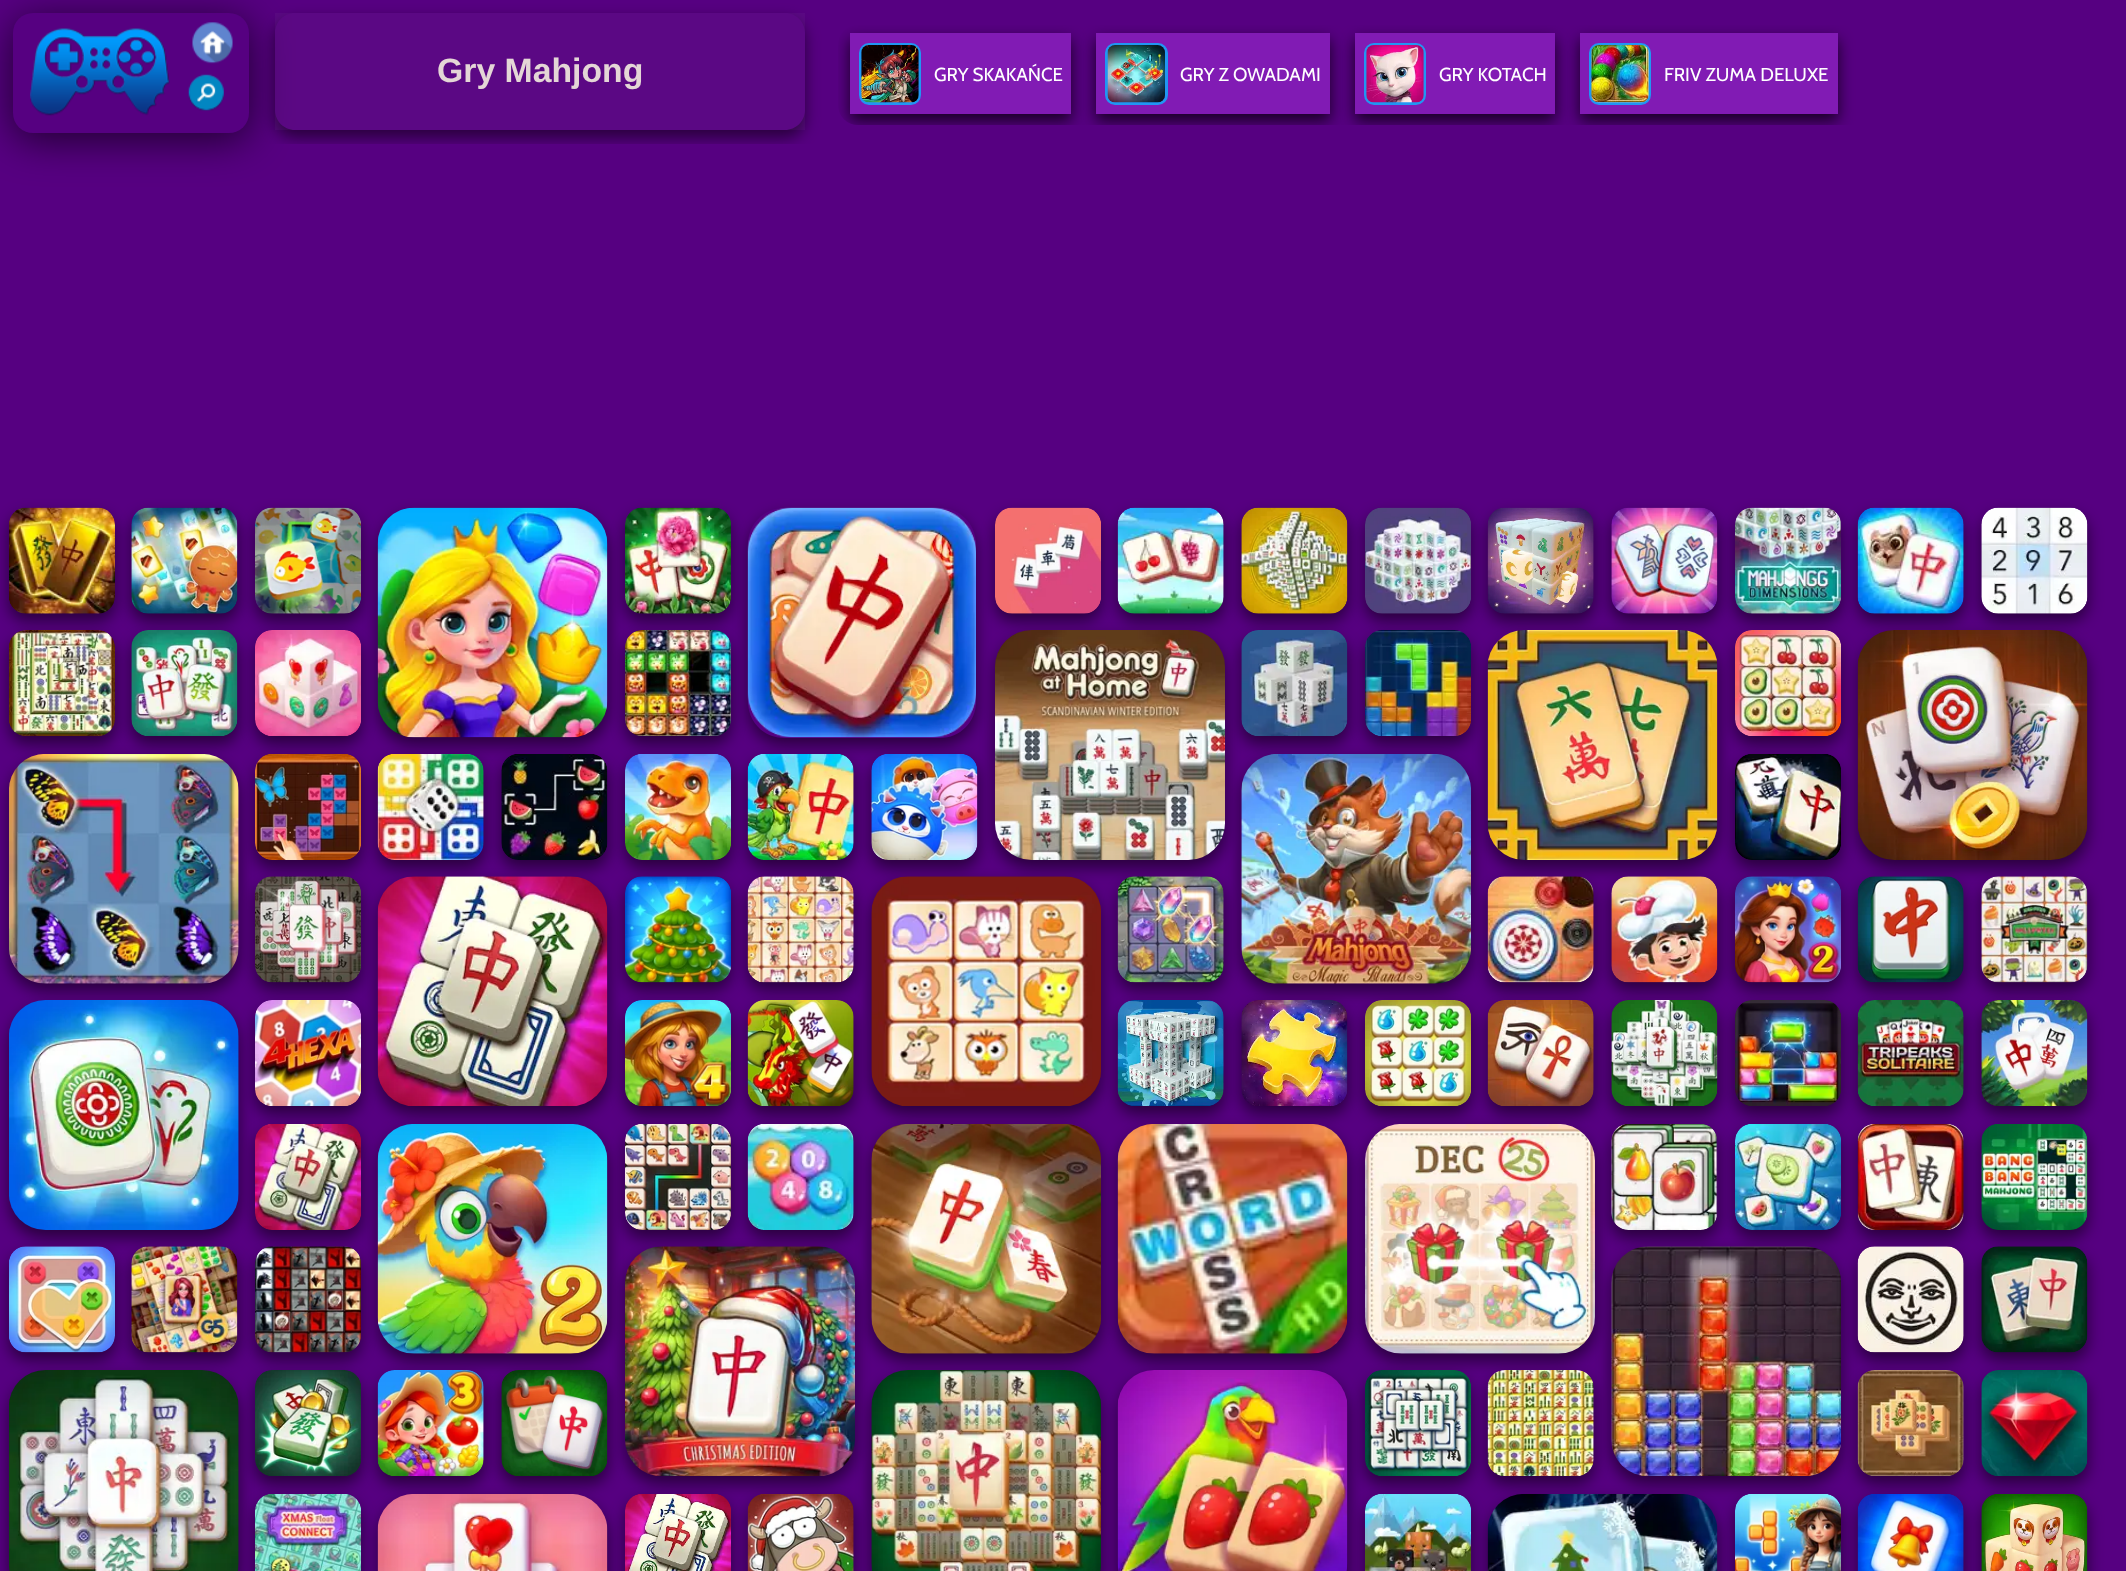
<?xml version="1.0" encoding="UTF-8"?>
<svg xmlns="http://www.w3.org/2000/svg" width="2126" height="1571">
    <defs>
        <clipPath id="clip1"><rect x="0" y="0" width="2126" height="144"/></clipPath>
        <clipPath id="clip2"><path d="M 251 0 H 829 V 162 H 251 Z M 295 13 H 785 C 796 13 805 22 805 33 V 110 C 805 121 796 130 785 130 H 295 C 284 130 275 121 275 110 V 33 C 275 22 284 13 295 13 Z" clip-rule="evenodd"/></clipPath>
        <filter id="blur1" x="-50%" y="-200%" width="200%" height="500%"><feGaussianBlur stdDeviation="7.5"/></filter>
        <filter id="blur2" x="-50%" y="-200%" width="200%" height="500%"><feGaussianBlur stdDeviation="20"/></filter>
        <clipPath id="clip3"><rect x="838" y="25" width="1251" height="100" rx="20"/></clipPath>
        <clipPath id="clip4"><path d="M 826 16 H 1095 V 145 H 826 Z M 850 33 H 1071 V 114 H 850 Z" clip-rule="evenodd"/></clipPath>
        <clipPath id="clip5"><path d="M 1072 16 H 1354 V 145 H 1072 Z M 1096 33 H 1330 V 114 H 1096 Z" clip-rule="evenodd"/></clipPath>
        <clipPath id="clip6"><path d="M 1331 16 H 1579 V 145 H 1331 Z M 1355 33 H 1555 V 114 H 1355 Z" clip-rule="evenodd"/></clipPath>
        <clipPath id="clip7"><path d="M 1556 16 H 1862 V 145 H 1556 Z M 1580 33 H 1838 V 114 H 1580 Z" clip-rule="evenodd"/></clipPath>
        <clipPath id="clip8"><path d="M 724 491 H 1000 V 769 H 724 Z M 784 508 H 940 C 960 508 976 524 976 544 V 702 C 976 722 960 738 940 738 H 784 C 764 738 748 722 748 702 V 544 C 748 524 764 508 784 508 Z" clip-rule="evenodd"/></clipPath>
    </defs>
    <rect width="100%" height="100%" fill="#560081"/>
    <g clip-path="url(#clip1)">
        <g clip-path="url(#clip2)">
            <rect x="275" y="20" width="530" height="118" rx="20" fill="#000000" fill-opacity="0.52" filter="url(#blur1)"/>
        </g>
    </g>
    <rect x="275" y="13" width="530" height="117" fill="#FFFFFF" fill-opacity="0.03"/>
    <rect x="13" y="20" width="236" height="120" rx="20" fill="#000000" fill-opacity="0.65" filter="url(#blur2)"/>
    <rect x="13" y="13" width="236" height="120" rx="20" fill="#560081"/>
    <image x="30" y="28" width="140" height="88" href="img_01.png"/>
    <image x="192" y="22" width="41" height="42" href="img_02.png"/>
    <image x="188" y="74" width="36" height="37" href="img_03.png"/>
    <text x="437" y="82" font-family="Liberation Sans" font-size="33.75" font-weight="700" fill="#E4D6D6">Gry Mahjong</text>
    <g clip-path="url(#clip3)">
        <g clip-path="url(#clip4)">
            <rect x="850" y="40" width="221" height="81" fill="#000000" fill-opacity="0.73" filter="url(#blur1)"/>
        </g>
    </g>
    <rect x="850" y="33" width="221" height="81" fill="#A933E4" fill-opacity="0.52"/>
    <rect x="860.5" y="44.5" width="59" height="59" rx="8.5" fill="none" stroke="#2196F3" stroke-width="3"/>
    <image x="861" y="45" width="58" height="58" href="img_04.png"/>
    <text x="934" y="81" font-family="Cabin" font-size="18.75" fill="#FFFFFF">GRY SKAKAŃCE</text>
    <g clip-path="url(#clip3)">
        <g clip-path="url(#clip5)">
            <rect x="1096" y="40" width="234" height="81" fill="#000000" fill-opacity="0.73" filter="url(#blur1)"/>
        </g>
    </g>
    <rect x="1096" y="33" width="234" height="81" fill="#A933E4" fill-opacity="0.52"/>
    <rect x="1106.5" y="44.5" width="60" height="59" rx="8.5" fill="none" stroke="#2196F3" stroke-width="3"/>
    <image x="1107" y="45" width="58" height="58" href="img_05.png"/>
    <text x="1180" y="81" font-family="Cabin" font-size="18.75" fill="#FFFFFF">GRY Z OWADAMI</text>
    <g clip-path="url(#clip3)">
        <g clip-path="url(#clip6)">
            <rect x="1355" y="40" width="200" height="81" fill="#000000" fill-opacity="0.73" filter="url(#blur1)"/>
        </g>
    </g>
    <rect x="1355" y="33" width="200" height="81" fill="#A933E4" fill-opacity="0.52"/>
    <rect x="1365.5" y="44.5" width="59" height="59" rx="8.5" fill="none" stroke="#2196F3" stroke-width="3"/>
    <image x="1366" y="45" width="58" height="58" href="img_06.png"/>
    <text x="1439" y="81" font-family="Cabin" font-size="18.75" fill="#FFFFFF">GRY KOTACH</text>
    <g clip-path="url(#clip3)">
        <g clip-path="url(#clip7)">
            <rect x="1580" y="40" width="258" height="81" fill="#000000" fill-opacity="0.73" filter="url(#blur1)"/>
        </g>
    </g>
    <rect x="1580" y="33" width="258" height="81" fill="#A933E4" fill-opacity="0.52"/>
    <rect x="1590.5" y="44.5" width="59" height="59" rx="8.5" fill="none" stroke="#2196F3" stroke-width="3"/>
    <image x="1591" y="45" width="58" height="58" href="img_07.png"/>
    <text x="1664" y="81" font-family="Cabin" font-size="18.75" fill="#FFFFFF">FRIV ZUMA DELUXE</text>
    <rect x="9" y="515" width="106" height="106" rx="18" fill="#000000" fill-opacity="0.52" filter="url(#blur1)"/>
    <image x="9" y="507" width="106" height="107" href="img_08.png"/>
    <rect x="131" y="515" width="107" height="106" rx="18" fill="#000000" fill-opacity="0.52" filter="url(#blur1)"/>
    <image x="131" y="507" width="107" height="107" href="img_09.png"/>
    <rect x="255" y="515" width="106" height="106" rx="18" fill="#000000" fill-opacity="0.52" filter="url(#blur1)"/>
    <image x="255" y="507" width="106" height="107" href="img_10.png"/>
    <rect x="378" y="515" width="230" height="230" rx="36" fill="#000000" fill-opacity="0.52" filter="url(#blur1)"/>
    <image x="377" y="507" width="231" height="231" href="img_11.png"/>
    <rect x="625" y="515" width="106" height="106" rx="18" fill="#000000" fill-opacity="0.52" filter="url(#blur1)"/>
    <image x="625" y="507" width="106" height="107" href="img_12.png"/>
    <g clip-path="url(#clip8)">
        <rect x="748" y="515" width="228" height="230" rx="36" fill="#000000" fill-opacity="0.52" filter="url(#blur1)"/>
    </g>
    <image x="747" y="507" width="229" height="231" href="img_13.png"/>
    <rect x="995" y="515" width="106" height="106" rx="18" fill="#000000" fill-opacity="0.52" filter="url(#blur1)"/>
    <image x="995" y="507" width="106" height="107" href="img_14.png"/>
    <rect x="1118" y="515" width="106" height="106" rx="18" fill="#000000" fill-opacity="0.52" filter="url(#blur1)"/>
    <image x="1117" y="507" width="107" height="107" href="img_15.png"/>
    <rect x="1241" y="515" width="107" height="106" rx="18" fill="#000000" fill-opacity="0.52" filter="url(#blur1)"/>
    <image x="1241" y="507" width="107" height="107" href="img_16.png"/>
    <rect x="1365" y="515" width="106" height="106" rx="18" fill="#000000" fill-opacity="0.52" filter="url(#blur1)"/>
    <image x="1365" y="507" width="106" height="107" href="img_17.png"/>
    <rect x="1488" y="515" width="106" height="106" rx="18" fill="#000000" fill-opacity="0.52" filter="url(#blur1)"/>
    <image x="1487" y="507" width="107" height="107" href="img_18.png"/>
    <rect x="1611" y="515" width="107" height="106" rx="18" fill="#000000" fill-opacity="0.52" filter="url(#blur1)"/>
    <image x="1611" y="507" width="107" height="107" href="img_19.png"/>
    <rect x="1735" y="515" width="106" height="106" rx="18" fill="#000000" fill-opacity="0.52" filter="url(#blur1)"/>
    <image x="1735" y="507" width="106" height="107" href="img_20.png"/>
    <rect x="1858" y="515" width="106" height="106" rx="18" fill="#000000" fill-opacity="0.52" filter="url(#blur1)"/>
    <image x="1857" y="507" width="107" height="107" href="img_21.png"/>
    <rect x="1981" y="515" width="107" height="106" rx="18" fill="#000000" fill-opacity="0.52" filter="url(#blur1)"/>
    <image x="1981" y="507" width="107" height="107" href="img_22.png"/>
    <rect x="9" y="638" width="106" height="106" rx="18" fill="#000000" fill-opacity="0.52" filter="url(#blur1)"/>
    <image x="9" y="630" width="106" height="106" href="img_23.png"/>
    <rect x="131" y="638" width="107" height="106" rx="18" fill="#000000" fill-opacity="0.52" filter="url(#blur1)"/>
    <image x="131" y="630" width="107" height="106" href="img_24.png"/>
    <rect x="255" y="638" width="106" height="106" rx="18" fill="#000000" fill-opacity="0.52" filter="url(#blur1)"/>
    <image x="255" y="630" width="106" height="106" href="img_25.png"/>
    <rect x="625" y="638" width="106" height="106" rx="18" fill="#000000" fill-opacity="0.52" filter="url(#blur1)"/>
    <image x="625" y="630" width="106" height="106" href="img_26.png"/>
    <rect x="995" y="638" width="230" height="230" rx="36" fill="#000000" fill-opacity="0.52" filter="url(#blur1)"/>
    <image x="995" y="630" width="230" height="230" href="img_27.png"/>
    <rect x="1241" y="638" width="107" height="106" rx="18" fill="#000000" fill-opacity="0.52" filter="url(#blur1)"/>
    <image x="1241" y="630" width="107" height="106" href="img_28.png"/>
    <rect x="1365" y="638" width="106" height="106" rx="18" fill="#000000" fill-opacity="0.52" filter="url(#blur1)"/>
    <image x="1365" y="630" width="106" height="106" href="img_29.png"/>
    <rect x="1488" y="638" width="230" height="230" rx="36" fill="#000000" fill-opacity="0.52" filter="url(#blur1)"/>
    <image x="1487" y="630" width="231" height="230" href="img_30.png"/>
    <rect x="1735" y="638" width="106" height="106" rx="18" fill="#000000" fill-opacity="0.52" filter="url(#blur1)"/>
    <image x="1735" y="630" width="106" height="106" href="img_31.png"/>
    <rect x="1858" y="638" width="230" height="230" rx="36" fill="#000000" fill-opacity="0.52" filter="url(#blur1)"/>
    <image x="1857" y="630" width="231" height="230" href="img_32.png"/>
    <rect x="9" y="761" width="230" height="230" rx="36" fill="#000000" fill-opacity="0.52" filter="url(#blur1)"/>
    <image x="9" y="754" width="230" height="230" href="img_33.png"/>
    <rect x="255" y="761" width="106" height="107" rx="18" fill="#000000" fill-opacity="0.52" filter="url(#blur1)"/>
    <image x="255" y="754" width="106" height="106" href="img_34.png"/>
    <rect x="378" y="761" width="106" height="107" rx="18" fill="#000000" fill-opacity="0.52" filter="url(#blur1)"/>
    <image x="377" y="754" width="107" height="106" href="img_35.png"/>
    <rect x="625" y="761" width="106" height="107" rx="18" fill="#000000" fill-opacity="0.52" filter="url(#blur1)"/>
    <image x="625" y="754" width="106" height="106" href="img_37.png"/>
    <rect x="501" y="761" width="107" height="107" rx="18" fill="#000000" fill-opacity="0.52" filter="url(#blur1)"/>
    <image x="501" y="754" width="107" height="106" href="img_36.png"/>
    <rect x="748" y="761" width="106" height="107" rx="18" fill="#000000" fill-opacity="0.52" filter="url(#blur1)"/>
    <image x="747" y="754" width="107" height="106" href="img_38.png"/>
    <rect x="871" y="761" width="107" height="107" rx="18" fill="#000000" fill-opacity="0.52" filter="url(#blur1)"/>
    <image x="871" y="754" width="107" height="106" href="img_39.png"/>
    <rect x="1241" y="761" width="230" height="230" rx="36" fill="#000000" fill-opacity="0.52" filter="url(#blur1)"/>
    <image x="1241" y="754" width="230" height="230" href="img_40.png"/>
    <rect x="1735" y="761" width="106" height="107" rx="18" fill="#000000" fill-opacity="0.52" filter="url(#blur1)"/>
    <image x="1735" y="754" width="106" height="106" href="img_41.png"/>
    <rect x="255" y="884" width="106" height="106" rx="18" fill="#000000" fill-opacity="0.52" filter="url(#blur1)"/>
    <image x="255" y="876" width="106" height="107" href="img_42.png"/>
    <rect x="378" y="884" width="230" height="230" rx="36" fill="#000000" fill-opacity="0.52" filter="url(#blur1)"/>
    <image x="377" y="876" width="231" height="230" href="img_43.png"/>
    <rect x="625" y="884" width="106" height="106" rx="18" fill="#000000" fill-opacity="0.52" filter="url(#blur1)"/>
    <image x="625" y="876" width="106" height="107" href="img_44.png"/>
    <rect x="748" y="884" width="106" height="106" rx="18" fill="#000000" fill-opacity="0.52" filter="url(#blur1)"/>
    <image x="747" y="876" width="107" height="107" href="img_45.png"/>
    <rect x="871" y="884" width="230" height="230" rx="36" fill="#000000" fill-opacity="0.52" filter="url(#blur1)"/>
    <image x="871" y="876" width="230" height="230" href="img_46.png"/>
    <rect x="1118" y="884" width="106" height="106" rx="18" fill="#000000" fill-opacity="0.52" filter="url(#blur1)"/>
    <image x="1117" y="876" width="107" height="107" href="img_47.png"/>
    <rect x="1488" y="884" width="106" height="106" rx="18" fill="#000000" fill-opacity="0.52" filter="url(#blur1)"/>
    <image x="1487" y="876" width="107" height="107" href="img_48.png"/>
    <rect x="1735" y="884" width="106" height="106" rx="18" fill="#000000" fill-opacity="0.52" filter="url(#blur1)"/>
    <image x="1735" y="876" width="106" height="107" href="img_50.png"/>
    <rect x="1611" y="884" width="107" height="106" rx="18" fill="#000000" fill-opacity="0.52" filter="url(#blur1)"/>
    <image x="1611" y="876" width="107" height="107" href="img_49.png"/>
    <rect x="1858" y="884" width="106" height="106" rx="18" fill="#000000" fill-opacity="0.52" filter="url(#blur1)"/>
    <image x="1857" y="876" width="107" height="107" href="img_51.png"/>
    <rect x="1981" y="884" width="107" height="106" rx="18" fill="#000000" fill-opacity="0.52" filter="url(#blur1)"/>
    <image x="1981" y="876" width="107" height="107" href="img_52.png"/>
    <rect x="255" y="1008" width="106" height="106" rx="18" fill="#000000" fill-opacity="0.52" filter="url(#blur1)"/>
    <image x="255" y="1000" width="106" height="106" href="img_54.png"/>
    <rect x="9" y="1008" width="230" height="230" rx="36" fill="#000000" fill-opacity="0.52" filter="url(#blur1)"/>
    <image x="9" y="1000" width="230" height="230" href="img_53.png"/>
    <rect x="625" y="1008" width="106" height="106" rx="18" fill="#000000" fill-opacity="0.52" filter="url(#blur1)"/>
    <image x="625" y="1000" width="106" height="106" href="img_55.png"/>
    <rect x="748" y="1008" width="106" height="106" rx="18" fill="#000000" fill-opacity="0.52" filter="url(#blur1)"/>
    <image x="747" y="1000" width="107" height="106" href="img_56.png"/>
    <rect x="1118" y="1008" width="106" height="106" rx="18" fill="#000000" fill-opacity="0.52" filter="url(#blur1)"/>
    <image x="1117" y="1000" width="107" height="106" href="img_57.png"/>
    <rect x="1241" y="1008" width="107" height="106" rx="18" fill="#000000" fill-opacity="0.52" filter="url(#blur1)"/>
    <image x="1241" y="1000" width="107" height="106" href="img_58.png"/>
    <rect x="1365" y="1008" width="106" height="106" rx="18" fill="#000000" fill-opacity="0.52" filter="url(#blur1)"/>
    <image x="1365" y="1000" width="106" height="106" href="img_59.png"/>
    <rect x="1488" y="1008" width="106" height="106" rx="18" fill="#000000" fill-opacity="0.52" filter="url(#blur1)"/>
    <image x="1487" y="1000" width="107" height="106" href="img_60.png"/>
    <rect x="1735" y="1008" width="106" height="106" rx="18" fill="#000000" fill-opacity="0.52" filter="url(#blur1)"/>
    <image x="1735" y="1000" width="106" height="106" href="img_62.png"/>
    <rect x="1611" y="1008" width="107" height="106" rx="18" fill="#000000" fill-opacity="0.52" filter="url(#blur1)"/>
    <image x="1611" y="1000" width="107" height="106" href="img_61.png"/>
    <rect x="1858" y="1008" width="106" height="106" rx="18" fill="#000000" fill-opacity="0.52" filter="url(#blur1)"/>
    <image x="1857" y="1000" width="107" height="106" href="img_63.png"/>
    <rect x="1981" y="1008" width="107" height="106" rx="18" fill="#000000" fill-opacity="0.52" filter="url(#blur1)"/>
    <image x="1981" y="1000" width="107" height="106" href="img_64.png"/>
    <rect x="255" y="1131" width="106" height="107" rx="18" fill="#000000" fill-opacity="0.52" filter="url(#blur1)"/>
    <image x="255" y="1124" width="106" height="106" href="img_65.png"/>
    <rect x="625" y="1131" width="106" height="107" rx="18" fill="#000000" fill-opacity="0.52" filter="url(#blur1)"/>
    <image x="625" y="1124" width="106" height="106" href="img_67.png"/>
    <rect x="378" y="1131" width="230" height="230" rx="36" fill="#000000" fill-opacity="0.52" filter="url(#blur1)"/>
    <image x="377" y="1124" width="231" height="230" href="img_66.png"/>
    <rect x="748" y="1131" width="106" height="107" rx="18" fill="#000000" fill-opacity="0.52" filter="url(#blur1)"/>
    <image x="747" y="1124" width="107" height="106" href="img_68.png"/>
    <rect x="1118" y="1131" width="230" height="230" rx="36" fill="#000000" fill-opacity="0.52" filter="url(#blur1)"/>
    <image x="1117" y="1124" width="231" height="230" href="img_70.png"/>
    <rect x="871" y="1131" width="230" height="230" rx="36" fill="#000000" fill-opacity="0.52" filter="url(#blur1)"/>
    <image x="871" y="1124" width="230" height="230" href="img_69.png"/>
    <rect x="1365" y="1131" width="230" height="230" rx="36" fill="#000000" fill-opacity="0.52" filter="url(#blur1)"/>
    <image x="1365" y="1124" width="230" height="230" href="img_71.png"/>
    <rect x="1735" y="1131" width="106" height="107" rx="18" fill="#000000" fill-opacity="0.52" filter="url(#blur1)"/>
    <image x="1735" y="1124" width="106" height="106" href="img_73.png"/>
    <rect x="1611" y="1131" width="107" height="107" rx="18" fill="#000000" fill-opacity="0.52" filter="url(#blur1)"/>
    <image x="1611" y="1124" width="107" height="106" href="img_72.png"/>
    <rect x="1858" y="1131" width="106" height="107" rx="18" fill="#000000" fill-opacity="0.52" filter="url(#blur1)"/>
    <image x="1857" y="1124" width="107" height="106" href="img_74.png"/>
    <rect x="1981" y="1131" width="107" height="107" rx="18" fill="#000000" fill-opacity="0.52" filter="url(#blur1)"/>
    <image x="1981" y="1124" width="107" height="106" href="img_75.png"/>
    <rect x="9" y="1254" width="106" height="106" rx="18" fill="#000000" fill-opacity="0.52" filter="url(#blur1)"/>
    <image x="9" y="1246" width="106" height="107" href="img_76.png"/>
    <rect x="255" y="1254" width="106" height="106" rx="18" fill="#000000" fill-opacity="0.52" filter="url(#blur1)"/>
    <image x="255" y="1246" width="106" height="107" href="img_78.png"/>
    <rect x="131" y="1254" width="107" height="106" rx="18" fill="#000000" fill-opacity="0.52" filter="url(#blur1)"/>
    <image x="131" y="1246" width="107" height="107" href="img_77.png"/>
    <rect x="625" y="1254" width="230" height="230" rx="36" fill="#000000" fill-opacity="0.52" filter="url(#blur1)"/>
    <image x="625" y="1246" width="230" height="230" href="img_79.png"/>
    <rect x="1611" y="1254" width="230" height="230" rx="36" fill="#000000" fill-opacity="0.52" filter="url(#blur1)"/>
    <image x="1611" y="1246" width="230" height="230" href="img_80.png"/>
    <rect x="1858" y="1254" width="106" height="106" rx="18" fill="#000000" fill-opacity="0.52" filter="url(#blur1)"/>
    <image x="1857" y="1246" width="107" height="107" href="img_81.png"/>
    <rect x="1981" y="1254" width="107" height="106" rx="18" fill="#000000" fill-opacity="0.52" filter="url(#blur1)"/>
    <image x="1981" y="1246" width="107" height="107" href="img_82.png"/>
    <rect x="255" y="1378" width="106" height="106" rx="18" fill="#000000" fill-opacity="0.52" filter="url(#blur1)"/>
    <image x="255" y="1370" width="106" height="106" href="img_84.png"/>
    <rect x="9" y="1378" width="230" height="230" rx="36" fill="#000000" fill-opacity="0.52" filter="url(#blur1)"/>
    <image x="9" y="1370" width="230" height="201" href="img_83.png"/>
    <rect x="378" y="1378" width="106" height="106" rx="18" fill="#000000" fill-opacity="0.52" filter="url(#blur1)"/>
    <image x="377" y="1370" width="107" height="106" href="img_85.png"/>
    <rect x="501" y="1378" width="107" height="106" rx="18" fill="#000000" fill-opacity="0.52" filter="url(#blur1)"/>
    <image x="501" y="1370" width="107" height="106" href="img_86.png"/>
    <rect x="1118" y="1378" width="230" height="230" rx="36" fill="#000000" fill-opacity="0.52" filter="url(#blur1)"/>
    <image x="1117" y="1370" width="231" height="201" href="img_88.png"/>
    <rect x="871" y="1378" width="230" height="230" rx="36" fill="#000000" fill-opacity="0.52" filter="url(#blur1)"/>
    <image x="871" y="1370" width="230" height="201" href="img_87.png"/>
    <rect x="1365" y="1378" width="106" height="106" rx="18" fill="#000000" fill-opacity="0.52" filter="url(#blur1)"/>
    <image x="1365" y="1370" width="106" height="106" href="img_89.png"/>
    <rect x="1488" y="1378" width="106" height="106" rx="18" fill="#000000" fill-opacity="0.52" filter="url(#blur1)"/>
    <image x="1487" y="1370" width="107" height="106" href="img_90.png"/>
    <rect x="1858" y="1378" width="106" height="106" rx="18" fill="#000000" fill-opacity="0.52" filter="url(#blur1)"/>
    <image x="1857" y="1370" width="107" height="106" href="img_91.png"/>
    <rect x="1981" y="1378" width="107" height="106" rx="18" fill="#000000" fill-opacity="0.52" filter="url(#blur1)"/>
    <image x="1981" y="1370" width="107" height="106" href="img_92.png"/>
    <rect x="255" y="1501" width="106" height="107" rx="18" fill="#000000" fill-opacity="0.52" filter="url(#blur1)"/>
    <image x="255" y="1494" width="106" height="77" href="img_93.png"/>
    <rect x="625" y="1501" width="106" height="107" rx="18" fill="#000000" fill-opacity="0.52" filter="url(#blur1)"/>
    <image x="625" y="1494" width="106" height="77" href="img_95.png"/>
    <rect x="378" y="1501" width="230" height="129" rx="36" fill="#000000" fill-opacity="0.52" filter="url(#blur1)"/>
    <image x="377" y="1494" width="231" height="77" href="img_94.png"/>
    <rect x="748" y="1501" width="106" height="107" rx="18" fill="#000000" fill-opacity="0.52" filter="url(#blur1)"/>
    <image x="747" y="1494" width="107" height="77" href="img_96.png"/>
    <rect x="1365" y="1501" width="106" height="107" rx="18" fill="#000000" fill-opacity="0.52" filter="url(#blur1)"/>
    <image x="1365" y="1494" width="106" height="77" href="img_97.png"/>
    <rect x="1488" y="1501" width="230" height="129" rx="36" fill="#000000" fill-opacity="0.52" filter="url(#blur1)"/>
    <image x="1487" y="1494" width="231" height="77" href="img_98.png"/>
    <rect x="1858" y="1501" width="106" height="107" rx="18" fill="#000000" fill-opacity="0.52" filter="url(#blur1)"/>
    <image x="1857" y="1494" width="107" height="77" href="img_100.png"/>
    <rect x="1735" y="1501" width="106" height="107" rx="18" fill="#000000" fill-opacity="0.52" filter="url(#blur1)"/>
    <image x="1735" y="1494" width="106" height="77" href="img_99.png"/>
    <rect x="1981" y="1501" width="107" height="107" rx="18" fill="#000000" fill-opacity="0.52" filter="url(#blur1)"/>
    <image x="1981" y="1494" width="107" height="77" href="img_101.png"/>
</svg>
